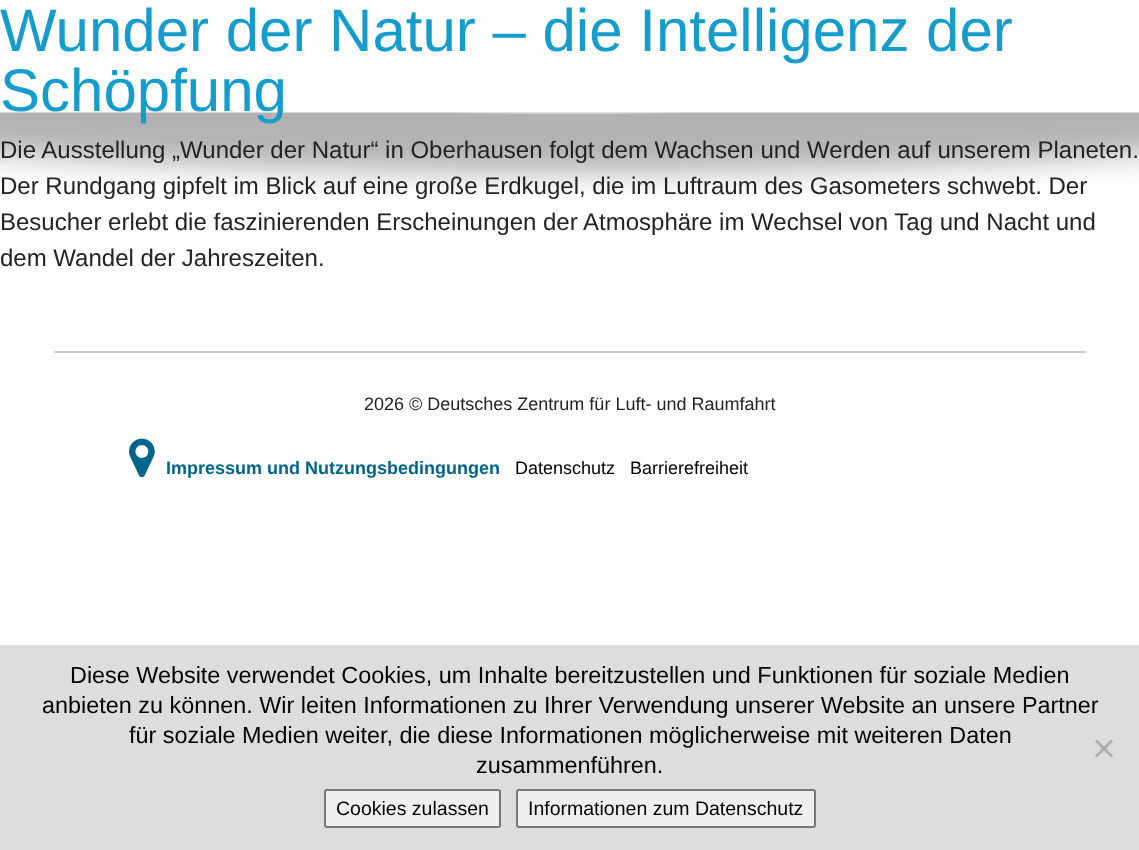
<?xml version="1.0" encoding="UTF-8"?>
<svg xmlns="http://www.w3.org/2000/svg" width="1139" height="850">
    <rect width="100%" height="100%" fill="#FFFFFF"/>
    <image x="0" y="112" width="1139" height="81" href="img_01.png"/>
    <text font-family="Liberation Sans" font-size="60" fill="#149DCC">
        <tspan x="0" y="51">Wunder der Natur – die Intelligenz der</tspan>
        <tspan x="0" y="111">Schöpfung</tspan>
    </text>
    <text font-family="Liberation Sans" font-size="24" fill="#232323">
        <tspan x="0" y="158">Die Ausstellung „Wunder der Natur“ in Oberhausen folgt dem Wachsen und Werden auf unserem Planeten.</tspan>
        <tspan x="0" y="194">Der Rundgang gipfelt im Blick auf eine große Erdkugel, die im Luftraum des Gasometers schwebt. Der</tspan>
        <tspan x="0" y="230">Besucher erlebt die faszinierenden Erscheinungen der Atmosphäre im Wechsel von Tag und Nacht und</tspan>
        <tspan x="0" y="266">dem Wandel der Jahreszeiten.</tspan>
    </text>
    <rect x="54" y="351" width="1032" height="2" fill="#CCCCCC"/>
    <text x="364" y="410" font-family="Liberation Sans" font-size="18" fill="#232323">2026 © Deutsches Zentrum für Luft- und Raumfahrt</text>
    <image x="129" y="438" width="26" height="40" href="img_02.png"/>
    <text x="166" y="474" font-family="Liberation Sans" font-size="18" font-weight="700" fill="#00658B">Impressum und Nutzungsbedingungen</text>
    <text x="515" y="474" font-family="Liberation Sans" font-size="18" fill="#000000">Datenschutz</text>
    <text x="630" y="474" font-family="Liberation Sans" font-size="18" fill="#000000">Barrierefreiheit</text>
    <rect x="0" y="645" width="1139" height="205" fill="#DEDDDD"/>
    <text x="70" y="683" font-family="Liberation Sans" font-size="23.4" fill="#000000">Diese Website verwendet Cookies, um Inhalte bereitzustellen und Funktionen für soziale Medien</text>
    <text x="42" y="713" font-family="Liberation Sans" font-size="23.4" fill="#000000">anbieten zu können. Wir leiten Informationen zu Ihrer Verwendung unserer Website an unsere Partner</text>
    <text x="129" y="743" font-family="Liberation Sans" font-size="23.4" fill="#000000">für soziale Medien weiter, die diese Informationen möglicherweise mit weiteren Daten</text>
    <text x="476" y="773" font-family="Liberation Sans" font-size="23.4" fill="#000000">zusammenführen.</text>
    <path d="M 1111 739.5 L 1113 741.5 L 1097 757.5 L 1095 755.5 Z" fill="#AFAFAF"/>
    <path d="M 1095 741.5 L 1097 739.5 L 1113 755.5 L 1111 757.5 Z" fill="#AFAFAF"/>
    <rect x="325" y="790" width="175" height="37" rx="2" fill="#EFEFEF" stroke="#767676" stroke-width="2"/>
    <text x="336" y="815" font-family="Liberation Sans" font-size="19.5" fill="#000000">Cookies zulassen</text>
    <rect x="517" y="790" width="298" height="37" rx="2" fill="#EFEFEF" stroke="#767676" stroke-width="2"/>
    <text x="528" y="815" font-family="Liberation Sans" font-size="19.5" fill="#000000">Informationen zum Datenschutz</text>
</svg>
